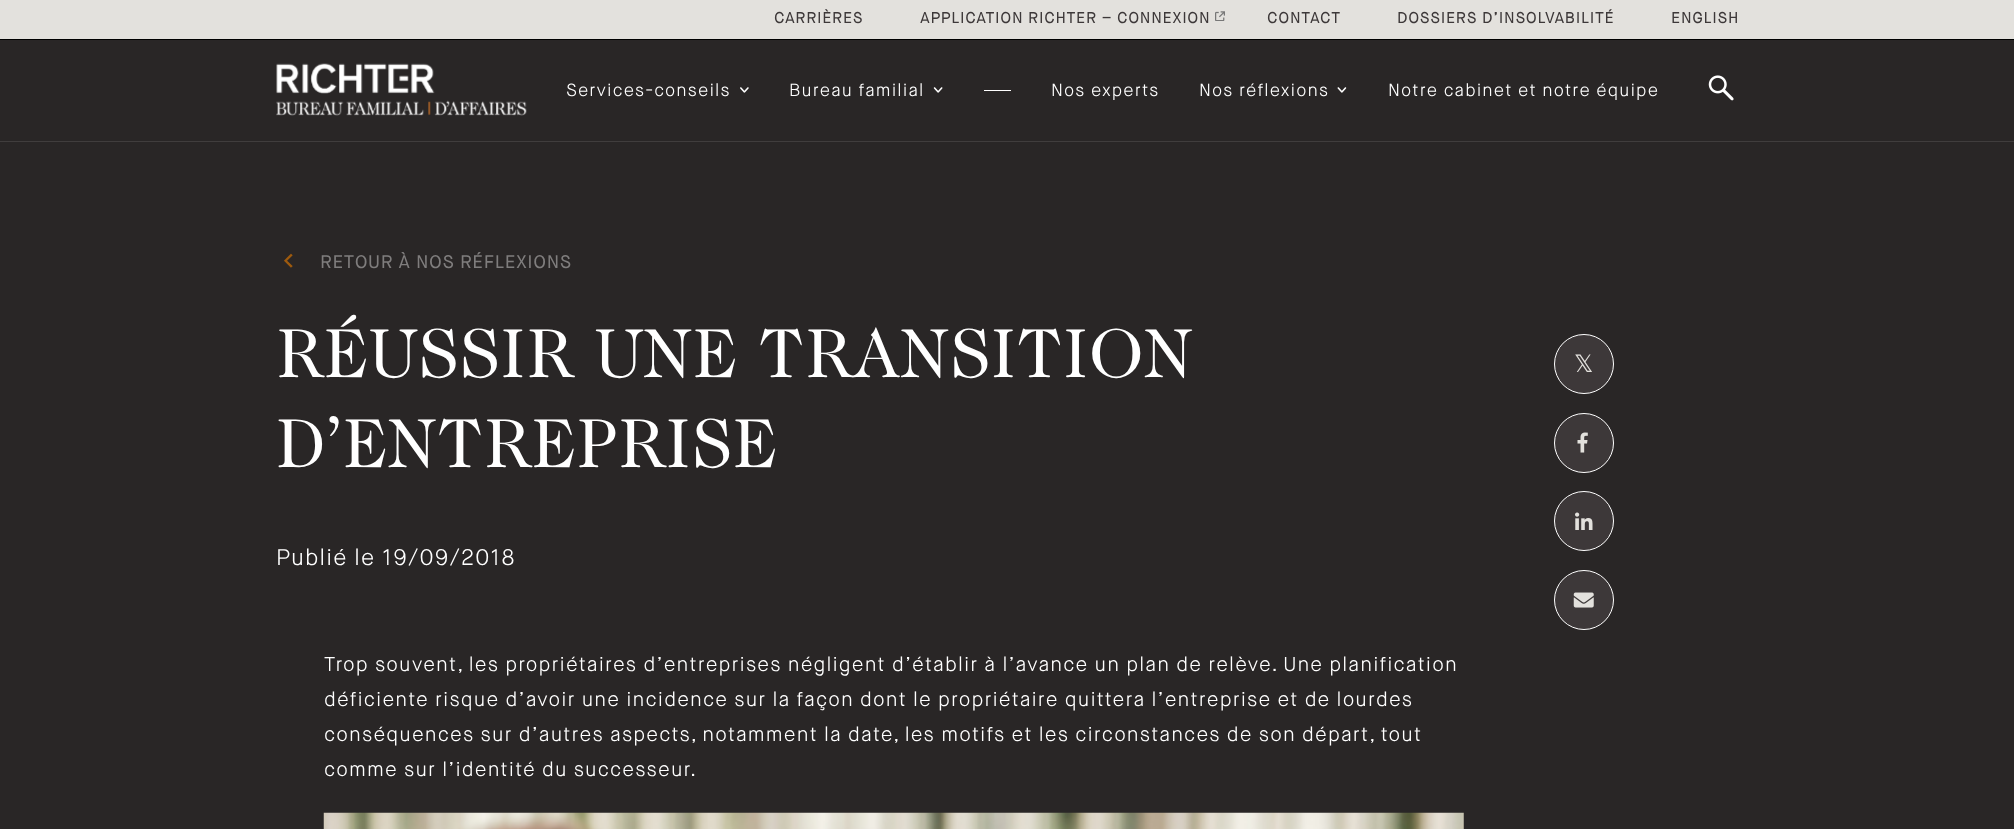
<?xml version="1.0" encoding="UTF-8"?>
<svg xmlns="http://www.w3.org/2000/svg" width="2014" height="829">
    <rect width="100%" height="100%" fill="#292626"/>
    <rect x="0" y="0" width="2014" height="39" fill="#E3E1DD"/>
    <text x="774" y="23" font-family="Maison Neue" font-size="15" font-weight="700" letter-spacing="1.12" fill="#3D3839">CARRIÈRES</text>
    <text x="920" y="23" font-family="Maison Neue" font-size="15" font-weight="700" letter-spacing="1.12" fill="#3D3839">APPLICATION RICHTER – CONNEXION</text>
    <image x="1215" y="11" width="10" height="10" href="img_01.png"/>
    <text x="1267" y="23" font-family="Maison Neue" font-size="15" font-weight="700" letter-spacing="1.12" fill="#3D3839">CONTACT</text>
    <text x="1397" y="23" font-family="Maison Neue" font-size="15" font-weight="700" letter-spacing="1.12" fill="#3D3839">DOSSIERS D’INSOLVABILITÉ</text>
    <text x="1671" y="23" font-family="Maison Neue" font-size="15" font-weight="700" letter-spacing="1.12" fill="#3D3839">ENGLISH</text>
    <rect x="0" y="141" width="2014" height="1" fill="#403D3D"/>
    <rect x="0" y="39" width="2014" height="1" fill="#000000"/>
    <image x="276" y="63" width="251" height="53" href="img_02.png"/>
    <text x="566" y="96" font-family="Maison Neue" font-size="17.5" font-weight="300" letter-spacing="1.12" fill="#FFFFFF">Services-conseils</text>
    <image x="740" y="87" width="9" height="6" href="img_03.png"/>
    <text x="789" y="96" font-family="Maison Neue" font-size="17.5" font-weight="300" letter-spacing="1.12" fill="#FFFFFF">Bureau familial</text>
    <image x="933" y="87" width="10" height="6" href="img_04.png"/>
    <rect x="984" y="90" width="27" height="1" fill="#FFFFFF"/>
    <text x="1051" y="96" font-family="Maison Neue" font-size="17.5" font-weight="300" letter-spacing="1.12" fill="#FFFFFF">Nos experts</text>
    <text x="1199" y="96" font-family="Maison Neue" font-size="17.5" font-weight="300" letter-spacing="1.12" fill="#FFFFFF">Nos réflexions</text>
    <image x="1337" y="87" width="10" height="6" href="img_05.png"/>
    <text x="1388" y="96" font-family="Maison Neue" font-size="17.5" font-weight="300" letter-spacing="1.12" fill="#FFFFFF">Notre cabinet et notre équipe</text>
    <image x="1708" y="75" width="26" height="26" href="img_06.png"/>
    <image x="284" y="253" width="9" height="15" href="img_07.png"/>
    <text x="320" y="268" font-family="Maison Neue" font-size="17.5" font-weight="700" letter-spacing="1.12" fill="#7F7D7D">RETOUR À NOS RÉFLEXIONS</text>
    <text font-family="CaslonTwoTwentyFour" font-size="70" letter-spacing="1.12" fill="#FFFFFF">
        <tspan x="276" y="377">RÉUSSIR UNE TRANSITION</tspan>
        <tspan x="276" y="467">D’ENTREPRISE</tspan>
    </text>
    <text x="276" y="565" font-family="Maison Neue" font-size="22.5" font-weight="300" letter-spacing="1.12" fill="#FFFFFF">Publié le 19/09/2018</text>
    <circle cx="1584" cy="364" r="29.5" fill="#3D3839" stroke="#FFFFFF"/>
    <text x="1574" y="372" font-family="DejaVu Sans" font-size="24" letter-spacing="1.12" fill="#E3E1DD">𝕏</text>
    <circle cx="1584" cy="443" r="29.5" fill="#3D3839" stroke="#FFFFFF"/>
    <image x="1577" y="432" width="11" height="21" href="img_08.png"/>
    <circle cx="1584" cy="521" r="29.5" fill="#3D3839" stroke="#FFFFFF"/>
    <image x="1575" y="512" width="18" height="18" href="img_09.png"/>
    <circle cx="1584" cy="600" r="29.5" fill="#3D3839" stroke="#FFFFFF"/>
    <image x="1573" y="592" width="21" height="16" href="img_10.png"/>
    <text font-family="Maison Neue" font-size="20" font-weight="300" letter-spacing="1.12" fill="#FFFFFF">
        <tspan x="324" y="671">Trop souvent, les propriétaires d’entreprises négligent d’établir à l’avance un plan de relève. Une planification</tspan>
        <tspan x="324" y="706">déficiente risque d’avoir une incidence sur la façon dont le propriétaire quittera l’entreprise et de lourdes</tspan>
        <tspan x="324" y="741">conséquences sur d’autres aspects, notamment la date, les motifs et les circonstances de son départ, tout</tspan>
        <tspan x="324" y="776">comme sur l’identité du successeur.</tspan>
    </text>
    <image x="323" y="812" width="1141" height="17" href="img_11.png"/>
</svg>
